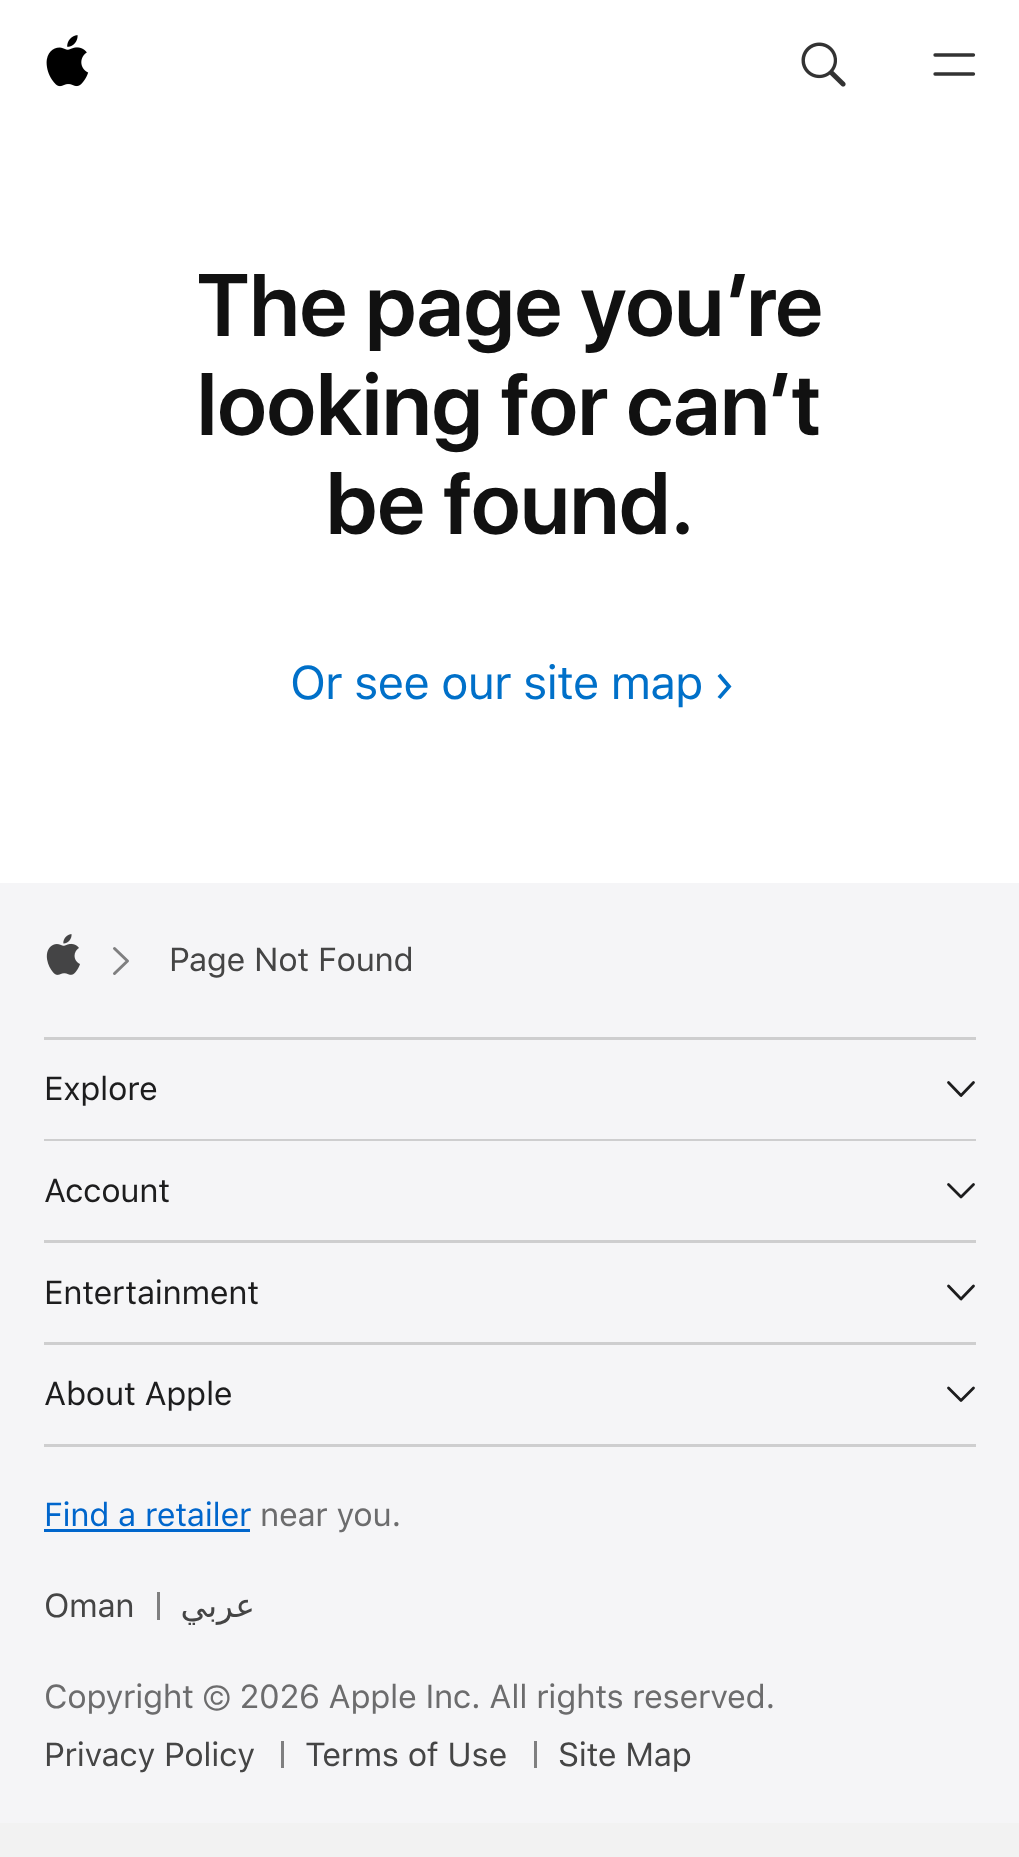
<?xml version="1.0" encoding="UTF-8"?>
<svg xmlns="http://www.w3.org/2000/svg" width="1019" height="1857">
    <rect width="100%" height="100%" fill="#F2F2F2"/>
    <rect x="0" y="0" width="1019" height="883" fill="#FFFFFF"/>
    <image x="46" y="35" width="43" height="52" href="img_01.png"/>
    <image x="801" y="42" width="45" height="45" href="img_02.png"/>
    <path d="M 935 74 H 973.5 M 935 55 H 973.5" fill="none" stroke="#333333" stroke-width="3.3" stroke-linecap="round" stroke-linejoin="round"/>
    <text font-family="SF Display" font-size="88" font-weight="600" letter-spacing="0.3" fill="#111111">
        <tspan x="197" y="336">The page you’re</tspan>
        <tspan x="197" y="435">looking for can’t</tspan>
    </text>
    <text x="326" y="534" font-family="SF Display" font-size="88" font-weight="600" letter-spacing="0.3" fill="#111111">be found.</text>
    <text x="290" y="699" font-family="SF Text" font-size="46.75" letter-spacing="-1" fill="#0070C9">Or see our site map</text>
    <path d="M 717.5 697 L 720.5 699 L 731.5 686.5 L 720.5 673.5 L 717.5 676 L 726.5 686.5 Z" fill="#0070C9"/>
    <rect x="0" y="883" width="1019" height="940" fill="#F5F5F7"/>
    <rect x="44" y="1037" width="932" height="3" fill="#CECECF"/>
    <image x="46" y="934" width="34" height="41" href="img_03.png"/>
    <path d="M 114.5 948.5 L 127.5 961 L 114.5 973.5" fill="none" stroke="#7F7F80" stroke-width="3" stroke-linecap="round" stroke-linejoin="round"/>
    <text x="169" y="971" font-family="SF Text" font-size="33" letter-spacing="-0.35" fill="#454545">Page Not Found</text>
    <text x="44" y="1100" font-family="SF Text" font-size="33" letter-spacing="-0.35" fill="#1D1D1E">Explore</text>
    <path d="M 973.5 1082.5 L 961 1095.5 L 948.5 1082.5" fill="none" stroke="#1D1D1E" stroke-width="2.8" stroke-linecap="round" stroke-linejoin="round"/>
    <rect x="44" y="1139" width="932" height="2" fill="#CECECF"/>
    <text x="44" y="1202" font-family="SF Text" font-size="33" letter-spacing="-0.35" fill="#1D1D1E">Account</text>
    <path d="M 973.5 1184.5 L 961 1197 L 948.5 1184.5" fill="none" stroke="#1D1D1E" stroke-width="2.8" stroke-linecap="round" stroke-linejoin="round"/>
    <rect x="44" y="1240" width="932" height="3" fill="#CECECF"/>
    <text x="44" y="1304" font-family="SF Text" font-size="33" letter-spacing="-0.35" fill="#1D1D1E">Entertainment</text>
    <path d="M 973.5 1286 L 961 1299 L 948.5 1286" fill="none" stroke="#1D1D1E" stroke-width="2.8" stroke-linecap="round" stroke-linejoin="round"/>
    <rect x="44" y="1342" width="932" height="3" fill="#CECECF"/>
    <text x="44" y="1405" font-family="SF Text" font-size="33" letter-spacing="-0.35" fill="#1D1D1E">About Apple</text>
    <path d="M 973.5 1388 L 961 1400.5 L 948.5 1388" fill="none" stroke="#1D1D1E" stroke-width="2.8" stroke-linecap="round" stroke-linejoin="round"/>
    <rect x="44" y="1444" width="932" height="3" fill="#CECECF"/>
    <text x="44" y="1526" font-family="SF Text" font-size="33" letter-spacing="-0.35" fill="#0066CC">Find a retailer</text>
    <rect x="44" y="1529" width="206" height="3" fill="#0066CC"/>
    <text x="260" y="1526" font-family="SF Text" font-size="33" letter-spacing="-0.35" fill="#6C6C6D">near you.</text>
    <text x="44" y="1617" font-family="SF Text" font-size="33" letter-spacing="-0.35" fill="#454545">Oman</text>
    <rect x="157" y="1592" width="3" height="28" fill="#7F7F80"/>
    <text x="255" y="1617" font-family="DejaVu Sans" font-size="33" letter-spacing="-0.35" direction="rtl" fill="#454545">عربي</text>
    <text x="44" y="1708" font-family="SF Text" font-size="33" letter-spacing="-0.35" fill="#6C6C6D">Copyright © 2026 Apple Inc. All rights reserved.</text>
    <text x="44" y="1766" font-family="SF Text" font-size="33" letter-spacing="-0.35" fill="#454545">Privacy Policy</text>
    <rect x="281" y="1741" width="3" height="27" fill="#7F7F80"/>
    <text x="305" y="1766" font-family="SF Text" font-size="33" letter-spacing="-0.35" fill="#454545">Terms of Use</text>
    <rect x="534" y="1741" width="3" height="27" fill="#7F7F80"/>
    <text x="558" y="1766" font-family="SF Text" font-size="33" letter-spacing="-0.35" fill="#454545">Site Map</text>
</svg>
